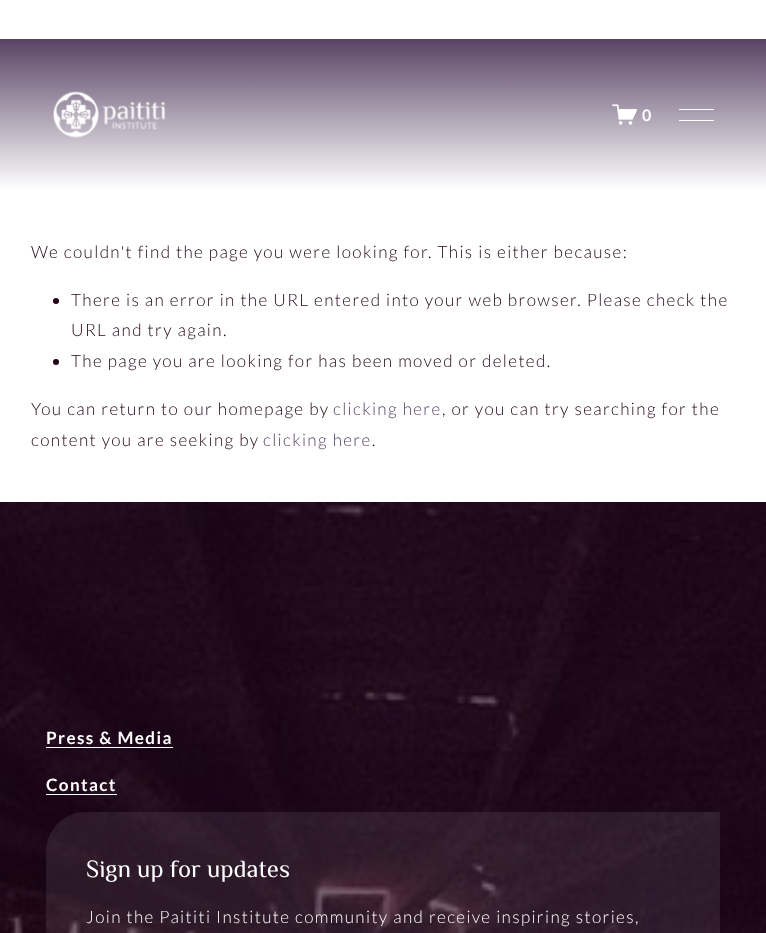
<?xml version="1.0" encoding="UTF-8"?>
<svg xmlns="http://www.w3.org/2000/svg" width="766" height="933">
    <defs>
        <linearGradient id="g1" gradientUnits="userSpaceOnUse" x1="383" y1="39" x2="383" y2="190"><stop offset="0" stop-color="#584364"/><stop offset="1" stop-color="#FFFFFF"/></linearGradient>
    </defs>
    <rect width="100%" height="100%" fill="#FFFFFF"/>
    <rect x="0" y="39" width="766" height="149" fill="url(#g1)"/>
    <image x="53" y="91" width="113" height="47" href="img_01.png"/>
    <image x="612" y="104" width="25" height="21" href="img_02.png"/>
    <text x="642" y="121" font-family="Lato" font-size="16" font-weight="700" letter-spacing="1" fill="#FFFFFF">0</text>
    <rect x="679" y="109" width="35" height="1" fill="#FFFFFF"/>
    <rect x="679" y="120" width="35" height="1" fill="#FFFFFF"/>
    <text x="31" y="258" font-family="Lato" font-size="17.1" font-weight="300" letter-spacing="1.37" fill="#210416">We couldn't find the page you were looking for. This is either because:</text>
    <circle cx="56" cy="301" r="3" fill="#210416"/>
    <text font-family="Lato" font-size="17.1" font-weight="300" letter-spacing="1.37" fill="#210416">
        <tspan x="71" y="306">There is an error in the URL entered into your web browser. Please check the</tspan>
        <tspan x="71" y="336">URL and try again.</tspan>
    </text>
    <circle cx="56" cy="362" r="3" fill="#210416"/>
    <text x="71" y="367" font-family="Lato" font-size="17.1" font-weight="300" letter-spacing="1.37" fill="#210416">The page you are looking for has been moved or deleted.</text>
    <text x="31" y="415" font-family="Lato" font-size="17.1" font-weight="300" letter-spacing="1.37" fill="#210416">You can return to our homepage by</text>
    <text x="333" y="415" font-family="Lato" font-size="17.1" font-weight="300" letter-spacing="1.37" fill="#584364">clicking here</text>
    <text x="442" y="415" font-family="Lato" font-size="17.1" font-weight="300" letter-spacing="1.37" fill="#210416">, or you can try searching for the</text>
    <text x="31" y="446" font-family="Lato" font-size="17.1" font-weight="300" letter-spacing="1.37" fill="#210416">content you are seeking by</text>
    <text x="263" y="446" font-family="Lato" font-size="17.1" font-weight="300" letter-spacing="1.37" fill="#584364">clicking here</text>
    <text x="372" y="446" font-family="Lato" font-size="17.1" font-weight="300" letter-spacing="1.37" fill="#210416">.</text>
    <image x="0" y="502" width="766" height="431" href="img_03.png"/>
    <text x="46" y="744" font-family="Lato" font-size="17.1" font-weight="700" letter-spacing="1.37" fill="#FFFFFF">Press &amp; Media</text>
    <rect x="46" y="747" width="127" height="1" fill="#FFFFFF"/>
    <text x="46" y="791" font-family="Lato" font-size="17.1" font-weight="700" letter-spacing="1.37" fill="#FFFFFF">Contact</text>
    <rect x="46" y="794" width="71" height="1" fill="#FFFFFF"/>
    <path d="M 86 812 H 720 V 933 C 720 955 702 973 680 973 H 46 V 852 C 46 830 64 812 86 812 Z" fill="#F1EAF6" fill-opacity="0.09"/>
    <text x="86" y="877" font-family="Philosopher" font-size="24.75" fill="#FFFFFF">Sign up for updates</text>
    <text x="86" y="923" font-family="Lato" font-size="17.1" font-weight="300" letter-spacing="1.37" fill="#FFFFFF">Join the Paititi Institute community and receive inspiring stories,</text>
</svg>
